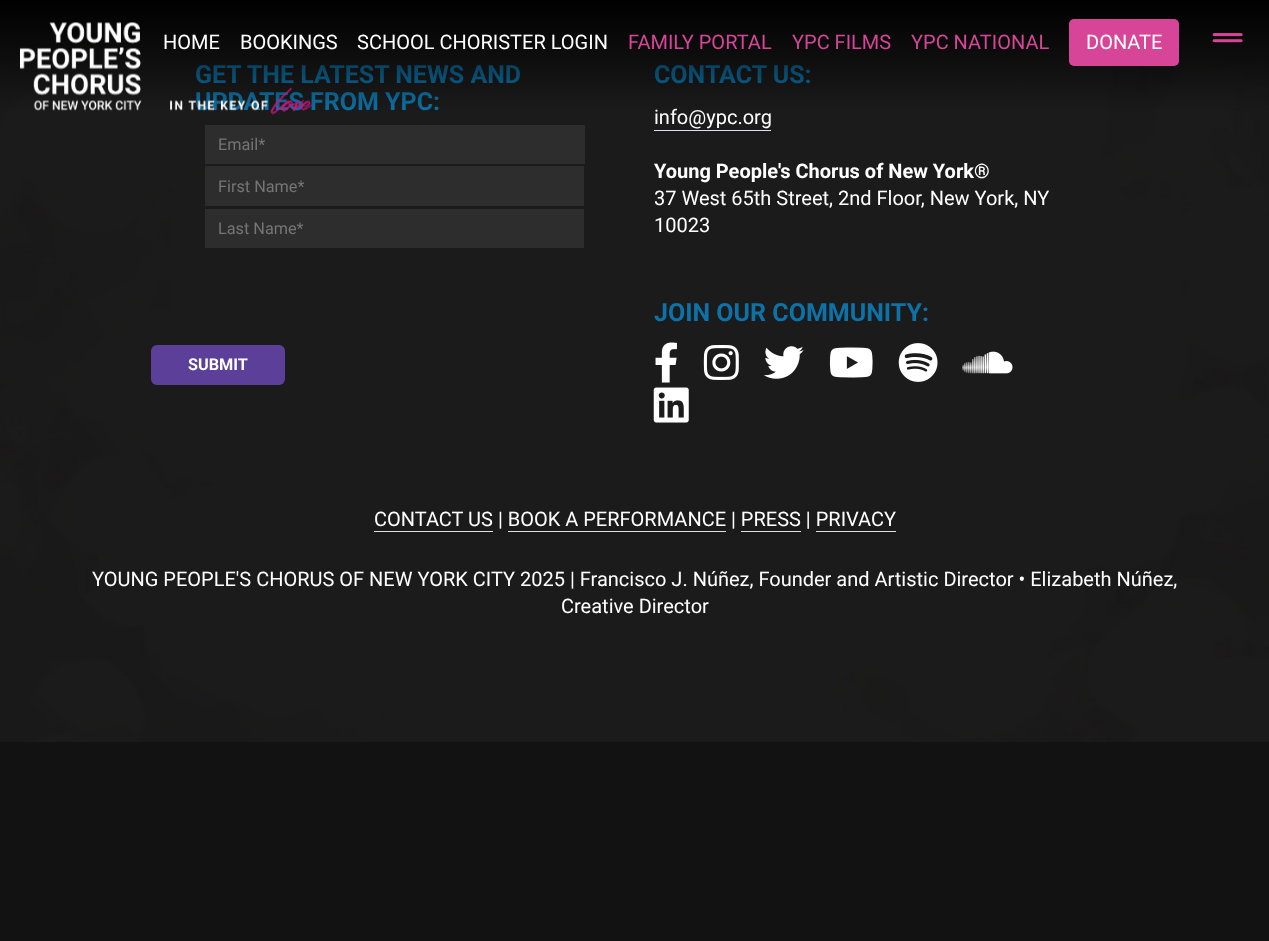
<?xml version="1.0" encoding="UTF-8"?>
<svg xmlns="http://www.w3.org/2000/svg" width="1269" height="941">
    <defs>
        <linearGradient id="g1" gradientUnits="userSpaceOnUse" x1="635" y1="0" x2="635" y2="113"><stop offset="0" stop-color="#000000"/><stop offset="1" stop-color="#000000" stop-opacity="0"/></linearGradient>
    </defs>
    <rect width="100%" height="100%" fill="#121212"/>
    <image x="0" y="1" width="1269" height="741" href="img_03.png"/>
    <text font-family="Roboto" font-size="25" font-weight="700" fill="#0C72A7">
        <tspan x="195" y="83">GET THE LATEST NEWS AND</tspan>
        <tspan x="195" y="110">UPDATES FROM YPC:</tspan>
    </text>
    <text x="654" y="83" font-family="Roboto" font-size="25" font-weight="700" fill="#0C72A7">CONTACT US:</text>
    <text x="654" y="124" font-family="Roboto" font-size="20" fill="#FFFFFF">info@ypc.org</text>
    <rect x="0" y="0" width="1269" height="111" fill="url(#g1)"/>
    <image x="20" y="22" width="293" height="93" href="img_01.png"/>
    <text x="163" y="49" font-family="Roboto" font-size="20" fill="#FFFFFF">HOME</text>
    <text x="240" y="49" font-family="Roboto" font-size="20" fill="#FFFFFF">BOOKINGS</text>
    <text x="357" y="49" font-family="Roboto" font-size="20" fill="#FFFFFF">SCHOOL CHORISTER LOGIN</text>
    <text x="628" y="49" font-family="Roboto" font-size="20" fill="#D74599">FAMILY PORTAL</text>
    <text x="792" y="49" font-family="Roboto" font-size="20" fill="#D74599">YPC FILMS</text>
    <text x="911" y="49" font-family="Roboto" font-size="20" fill="#D74599">YPC NATIONAL</text>
    <rect x="1069" y="19" width="110" height="47" rx="5" fill="#D74599"/>
    <text x="1086" y="49" font-family="Roboto" font-size="20" fill="#FFFFFF">DONATE</text>
    <image x="1212" y="33" width="31" height="10" href="img_02.png"/>
    <rect x="205" y="125" width="380" height="39" fill="#2D2D2D"/>
    <text x="218" y="150" font-family="Roboto" font-size="16.25" fill="#757575">Email*</text>
    <rect x="205" y="166" width="379" height="40" fill="#2D2D2D"/>
    <text x="218" y="192" font-family="Roboto" font-size="16.25" fill="#757575">First Name*</text>
    <rect x="205" y="209" width="379" height="39" fill="#2D2D2D"/>
    <text x="218" y="234" font-family="Roboto" font-size="16.25" fill="#757575">Last Name*</text>
    <rect x="151" y="345" width="134" height="40" rx="6" fill="#5B3F99"/>
    <text x="188" y="370" font-family="Roboto" font-size="16.25" font-weight="700" fill="#FFFFFF">SUBMIT</text>
    <rect x="654" y="130" width="117" height="1" fill="#DEE2E6"/>
    <text x="654" y="178" font-family="Roboto" font-size="20" font-weight="700" fill="#FFFFFF">Young People's Chorus of New York®</text>
    <text font-family="Roboto" font-size="20" fill="#FFFFFF">
        <tspan x="654" y="205">37 West 65th Street, 2nd Floor, New York, NY</tspan>
        <tspan x="654" y="232">10023</tspan>
    </text>
    <text x="654" y="321" font-family="Roboto" font-size="25" font-weight="700" fill="#0C72A7">JOIN OUR COMMUNITY:</text>
    <image x="655" y="342" width="22" height="41" href="img_04.png"/>
    <image x="703" y="345" width="36" height="35" href="img_05.png"/>
    <image x="764" y="346" width="40" height="33" href="img_06.png"/>
    <image x="829" y="347" width="44" height="31" href="img_07.png"/>
    <image x="898" y="343" width="40" height="39" href="img_08.png"/>
    <image x="962" y="351" width="51" height="23" href="img_09.png"/>
    <image x="653" y="387" width="36" height="36" href="img_10.png"/>
    <text x="374" y="526" font-family="Roboto" font-size="20" fill="#FFFFFF">CONTACT US | BOOK A PERFORMANCE | PRESS | PRIVACY</text>
    <rect x="374" y="531" width="119" height="1" fill="#DEE2E6"/>
    <rect x="508" y="531" width="218" height="1" fill="#DEE2E6"/>
    <rect x="741" y="531" width="60" height="1" fill="#DEE2E6"/>
    <rect x="816" y="531" width="80" height="1" fill="#DEE2E6"/>
    <text x="92" y="586" font-family="Roboto" font-size="20" fill="#FFFFFF">YOUNG PEOPLE'S CHORUS OF NEW YORK CITY 2025 | Francisco J. Núñez, Founder and Artistic Director • Elizabeth Núñez,</text>
    <text x="561" y="613" font-family="Roboto" font-size="20" fill="#FFFFFF">Creative Director</text>
</svg>
